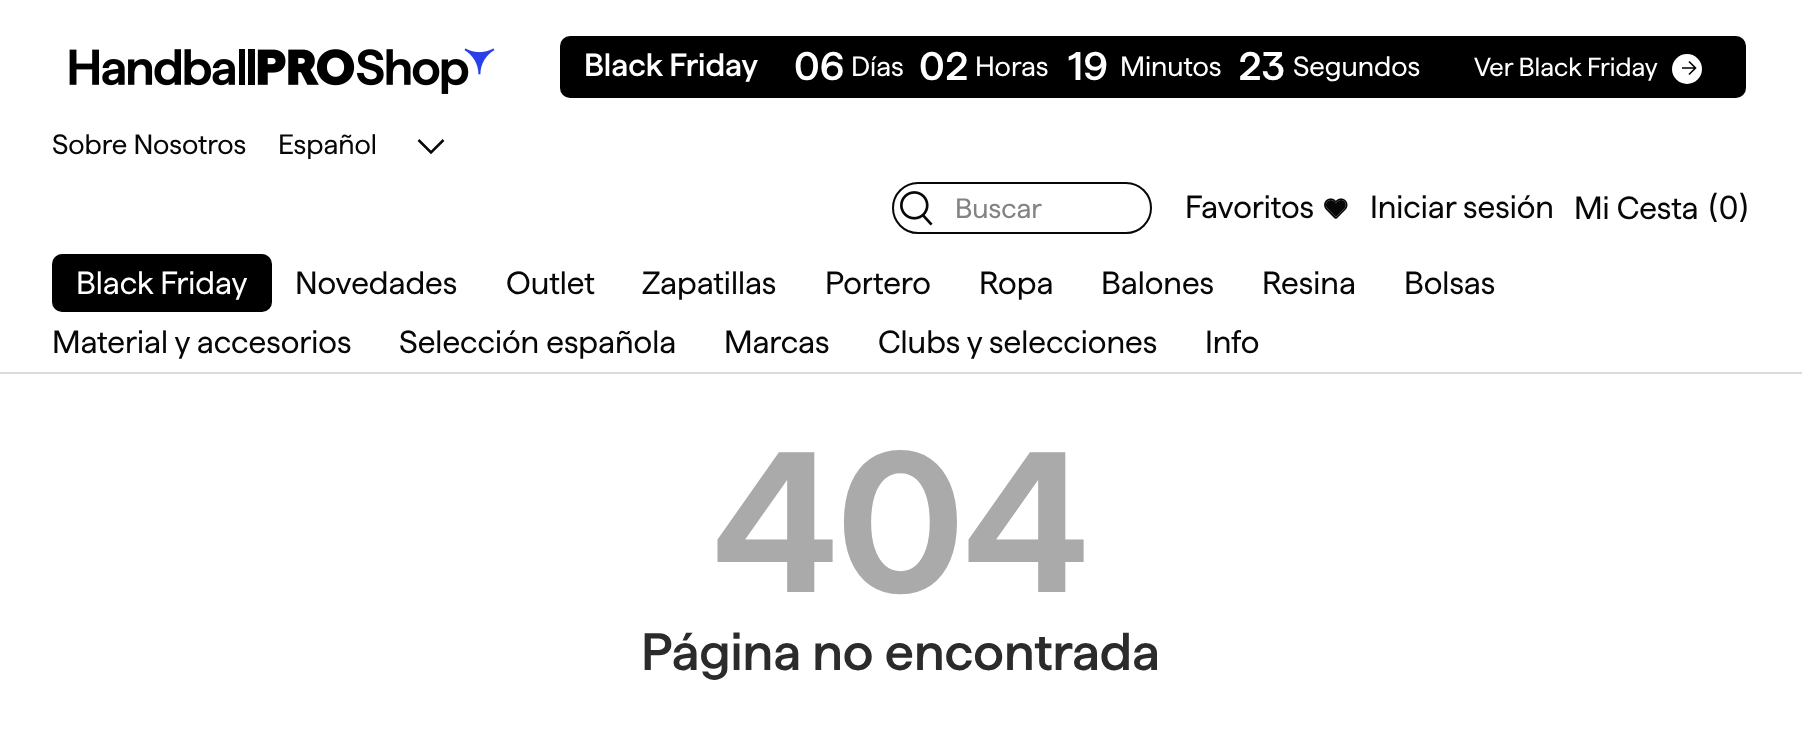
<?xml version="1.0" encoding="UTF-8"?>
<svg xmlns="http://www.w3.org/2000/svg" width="1802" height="731">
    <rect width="100%" height="100%" fill="#FFFFFF"/>
    <rect x="0" y="372" width="1802" height="2" fill="#DADADA"/>
    <image x="69" y="48" width="426" height="46" href="img_01.png"/>
    <rect x="560" y="36" width="1186" height="62" rx="10" fill="#000000"/>
    <text x="584" y="76" font-family="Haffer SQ" font-size="32" font-weight="500" fill="#FFFFFF">Black Friday</text>
    <text x="794" y="80" font-family="Haffer SQ" font-size="40" font-weight="500" fill="#FFFFFF">06</text>
    <text x="851" y="76" font-family="Haffer SQ" font-size="28" fill="#FFFFFF">Días</text>
    <text x="919" y="80" font-family="Haffer SQ" font-size="40" font-weight="500" fill="#FFFFFF">02</text>
    <text x="975" y="76" font-family="Haffer SQ" font-size="28" fill="#FFFFFF">Horas</text>
    <text x="1068" y="80" font-family="Haffer SQ" font-size="40" font-weight="500" fill="#FFFFFF">19</text>
    <text x="1120" y="76" font-family="Haffer SQ" font-size="28" fill="#FFFFFF">Minutos</text>
    <text x="1238" y="80" font-family="Haffer SQ" font-size="40" font-weight="500" fill="#FFFFFF">23</text>
    <text x="1293" y="76" font-family="Haffer SQ" font-size="28" fill="#FFFFFF">Segundos</text>
    <text x="1474" y="76" font-family="Haffer SQ" font-size="26" fill="#FFFFFF">Ver Black Friday</text>
    <circle cx="1687" cy="69" r="15" fill="#FFFFFF"/>
    <path d="M 1682 68 H 1695 M 1689 61.5 L 1695.5 68 L 1689 74.5" fill="none" stroke="#000000" stroke-width="1.6"/>
    <text x="52" y="154" font-family="Haffer SQ" font-size="28" fill="#070707">Sobre Nosotros</text>
    <text x="278" y="154" font-family="Haffer SQ" font-size="28" fill="#070707">Español</text>
    <path d="M 443.5 140 L 431 152.5 L 418.5 140" fill="none" stroke="#070707" stroke-width="2.5"/>
    <rect x="893" y="183" width="258" height="50" rx="25" fill="none" stroke="#070707" stroke-width="2"/>
    <image x="900" y="191" width="33" height="35" href="img_02.png"/>
    <text x="955" y="218" font-family="Haffer SQ" font-size="28" fill="#838383">Buscar</text>
    <text x="1185" y="218" font-family="Haffer SQ" font-size="32" fill="#070707">Favoritos</text>
    <image x="1324" y="198" width="24" height="21" href="img_03.png"/>
    <text x="1370" y="218" font-family="Haffer SQ" font-size="32" fill="#070707">Iniciar sesión</text>
    <text x="1574" y="219" font-family="Haffer SQ" font-size="32" fill="#070707">Mi Cesta</text>
    <text x="1707" y="219" font-family="Inter" font-size="32" fill="#070707">(0)</text>
    <rect x="52" y="254" width="220" height="58" rx="10" fill="#000000"/>
    <text x="76" y="294" font-family="Haffer SQ" font-size="32" fill="#FFFFFF">Black Friday</text>
    <text x="295" y="294" font-family="Haffer SQ" font-size="32" fill="#070707">Novedades</text>
    <text x="506" y="294" font-family="Haffer SQ" font-size="32" fill="#070707">Outlet</text>
    <text x="642" y="294" font-family="Haffer SQ" font-size="32" fill="#070707">Zapatillas</text>
    <text x="825" y="294" font-family="Haffer SQ" font-size="32" fill="#070707">Portero</text>
    <text x="979" y="294" font-family="Haffer SQ" font-size="32" fill="#070707">Ropa</text>
    <text x="1101" y="294" font-family="Haffer SQ" font-size="32" fill="#070707">Balones</text>
    <text x="1262" y="294" font-family="Haffer SQ" font-size="32" fill="#070707">Resina</text>
    <text x="1404" y="294" font-family="Haffer SQ" font-size="32" fill="#070707">Bolsas</text>
    <text x="52" y="353" font-family="Haffer SQ" font-size="32" fill="#070707">Material y accesorios</text>
    <text x="399" y="353" font-family="Haffer SQ" font-size="32" fill="#070707">Selección española</text>
    <text x="724" y="353" font-family="Haffer SQ" font-size="32" fill="#070707">Marcas</text>
    <text x="878" y="353" font-family="Haffer SQ" font-size="32" fill="#070707">Clubs y selecciones</text>
    <text x="1205" y="353" font-family="Haffer SQ" font-size="32" fill="#070707">Info</text>
    <text x="712" y="592" font-family="Inter" font-size="192" font-weight="700" fill="#AAAAAA">404</text>
    <text x="641" y="670" font-family="Haffer SQ" font-size="52.5" font-weight="500" fill="#2A2B2A">Página no encontrada</text>
</svg>
